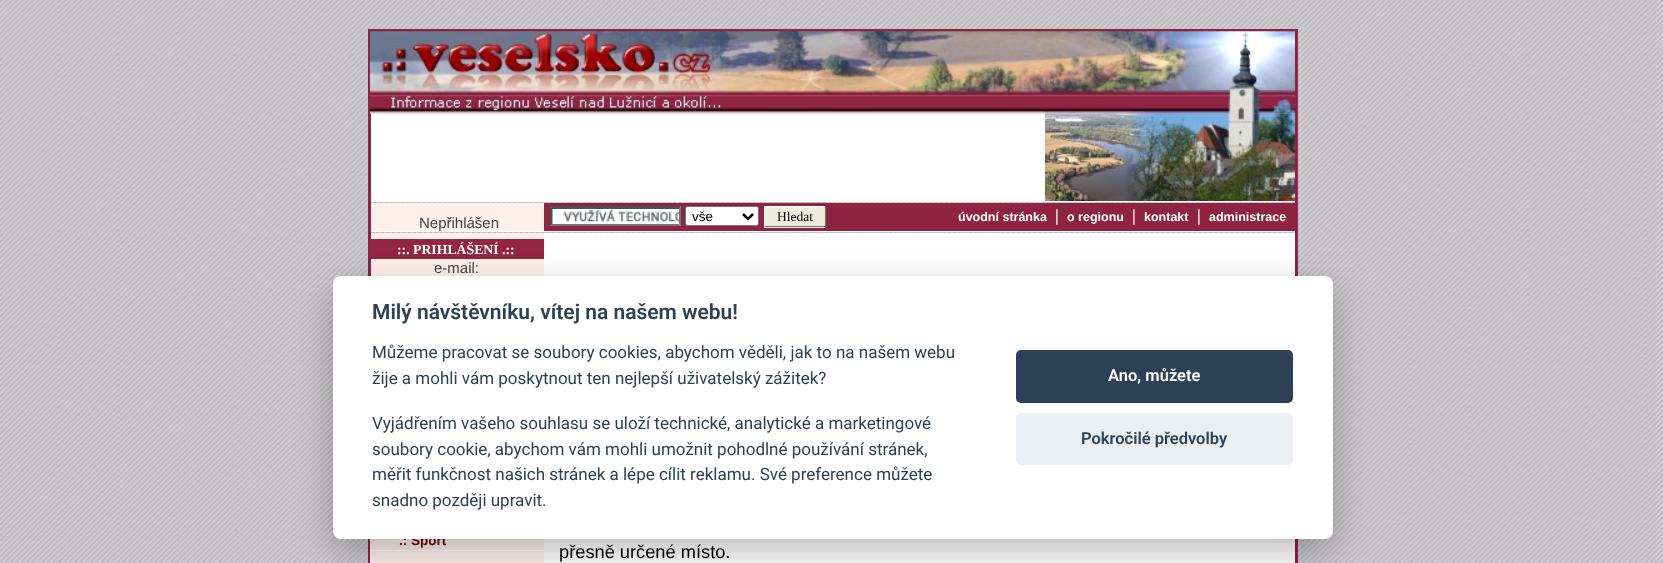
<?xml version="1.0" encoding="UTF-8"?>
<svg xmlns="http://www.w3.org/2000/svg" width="1663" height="563">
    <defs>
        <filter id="blur1" x="-50%" y="-200%" width="200%" height="500%"><feGaussianBlur stdDeviation="19"/></filter>
    </defs>
    <rect width="100%" height="100%" fill="#FFFFFF"/>
    <image x="0" y="0" width="1663" height="563" href="img_01.png"/>
    <rect x="368" y="29" width="930" height="3" fill="#8E2344"/>
    <rect x="1295" y="29" width="3" height="172" fill="#8E2344"/>
    <rect x="368" y="29" width="3" height="172" fill="#8E2344"/>
    <rect x="371" y="113" width="674" height="88" fill="#FFFFFF"/>
    <image x="370" y="31" width="675" height="83" href="img_02.png"/>
    <image x="1045" y="31" width="250" height="83" href="img_03.png"/>
    <image x="1045" y="113" width="250" height="88" href="img_04.png"/>
    <rect x="369" y="201" width="927" height="1" fill="#FFFFFF"/>
    <rect x="369" y="231" width="927" height="1" fill="#FFFFFF"/>
    <rect x="1295" y="201" width="3" height="362" fill="#8E2344"/>
    <rect x="368" y="201" width="3" height="362" fill="#8E2344"/>
    <rect x="371" y="203" width="173" height="28" fill="#FFF0EB"/>
    <text x="419" y="228" font-family="Liberation Sans" font-size="15" fill="#434343">Nepřihlášen</text>
    <rect x="544" y="203" width="751" height="28" fill="#8E2344"/>
    <rect x="550" y="206" width="131" height="20" fill="#FFFFFF"/>
    <image x="563" y="209" width="119" height="13" href="img_05.png"/>
    <path d="M 550 206 H 681 L 679 209 H 552 Z" fill="#4F4F4F"/>
    <path d="M 681 206 V 226 L 679 224 V 209 Z" fill="#767676"/>
    <path d="M 681 226 H 550 L 552 224 H 679 Z" fill="#767676"/>
    <path d="M 550 226 V 206 L 552.5 209 V 224 Z" fill="#4F4F4F"/>
    <rect x="685.5" y="206.5" width="73" height="19" rx="2" fill="#FFFFFF" stroke="#767676"/>
    <path d="M 743 214 L 748 219 L 753 214" fill="none" stroke="#000000" stroke-width="2.5"/>
    <text x="692" y="221" font-family="Liberation Sans" font-size="13.5" fill="#000000">vše</text>
    <rect x="765" y="207" width="60" height="21" fill="#EFEBDE"/>
    <rect x="764" y="206" width="62" height="1" fill="#FFFFFF"/>
    <rect x="825" y="206" width="1" height="22" fill="#736D63"/>
    <rect x="764" y="226" width="62" height="1" fill="#736D63"/>
    <rect x="764" y="206" width="1" height="22" fill="#FFFFFF"/>
    <text x="777" y="221" font-family="Liberation Serif" font-size="13.5" fill="#000000">Hledat</text>
    <text x="958" y="221" font-family="Liberation Sans" font-size="12.5" font-weight="700" fill="#FFFFFF">úvodní stránka</text>
    <text x="1055" y="221" font-family="Liberation Serif" font-size="17" font-weight="700" fill="#FFFFFF">|</text>
    <text x="1067" y="221" font-family="Liberation Sans" font-size="12.5" font-weight="700" fill="#FFFFFF">o regionu</text>
    <text x="1132" y="221" font-family="Liberation Serif" font-size="17" font-weight="700" fill="#FFFFFF">|</text>
    <text x="1144" y="221" font-family="Liberation Sans" font-size="12.5" font-weight="700" fill="#FFFFFF">kontakt</text>
    <text x="1197" y="221" font-family="Liberation Serif" font-size="17" font-weight="700" fill="#FFFFFF">|</text>
    <text x="1209" y="221" font-family="Liberation Sans" font-size="12.5" font-weight="700" fill="#FFFFFF">administrace</text>
    <rect x="544" y="233" width="751" height="330" fill="#FFFFFF"/>
    <rect x="371" y="233" width="173" height="43" fill="#FFF0EB"/>
    <rect x="370" y="239" width="174" height="20" fill="#942442"/>
    <text x="397" y="254" font-family="Liberation Serif" font-size="13.75" font-weight="700" fill="#FFFFFF">::. PRIHLÁŠENÍ .::</text>
    <text x="434" y="273" font-family="Liberation Sans" font-size="15" fill="#434343">e-mail:</text>
    <rect x="370" y="539" width="174" height="11" fill="#FFF0EB"/>
    <rect x="370" y="550" width="174" height="1" fill="#FFFFFF"/>
    <text x="399" y="545" font-family="Liberation Sans" font-size="13.5" font-weight="700" fill="#660000">.: Sport</text>
    <rect x="370" y="551" width="174" height="12" fill="#FFF0EB"/>
    <text x="559" y="558" font-family="Liberation Sans" font-size="18.25" fill="#000000">přesně určené místo.</text>
    <rect x="333" y="289" width="1000" height="262" rx="8" fill="#020203" fill-opacity="0.28" filter="url(#blur1)"/>
    <rect x="333" y="276" width="1000" height="263" rx="8" fill="#FFFFFF"/>
    <text x="372" y="319" font-family="Roboto" font-size="21" font-weight="600" fill="#2D4156">Milý návštěvníku, vítej na našem webu!</text>
    <text font-family="Roboto" font-size="17" fill="#2D4156">
        <tspan x="372" y="358">Můžeme pracovat se soubory cookies, abychom věděli, jak to na našem webu</tspan>
        <tspan x="372" y="384">žije a mohli vám poskytnout ten nejlepší uživatelský zážitek?</tspan>
    </text>
    <text font-family="Roboto" font-size="17" fill="#2D4156">
        <tspan x="372" y="429">Vyjádřením vašeho souhlasu se uloží technické, analytické a marketingové</tspan>
        <tspan x="372" y="455">soubory cookie, abychom vám mohli umožnit pohodlné používání stránek,</tspan>
        <tspan x="372" y="480">měřit funkčnost našich stránek a lépe cílit reklamu. Své preference můžete</tspan>
        <tspan x="372" y="506">snadno později upravit.</tspan>
    </text>
    <rect x="1016" y="350" width="277" height="53" rx="5" fill="#2D4156"/>
    <text x="1108" y="381" font-family="Roboto" font-size="16.5" font-weight="600" fill="#FFFFFF">Ano, můžete</text>
    <rect x="1016" y="413" width="277" height="52" rx="5" fill="#EAEFF2"/>
    <text x="1081" y="444" font-family="Roboto" font-size="16.5" font-weight="600" fill="#2D4156">Pokročilé předvolby</text>
</svg>
